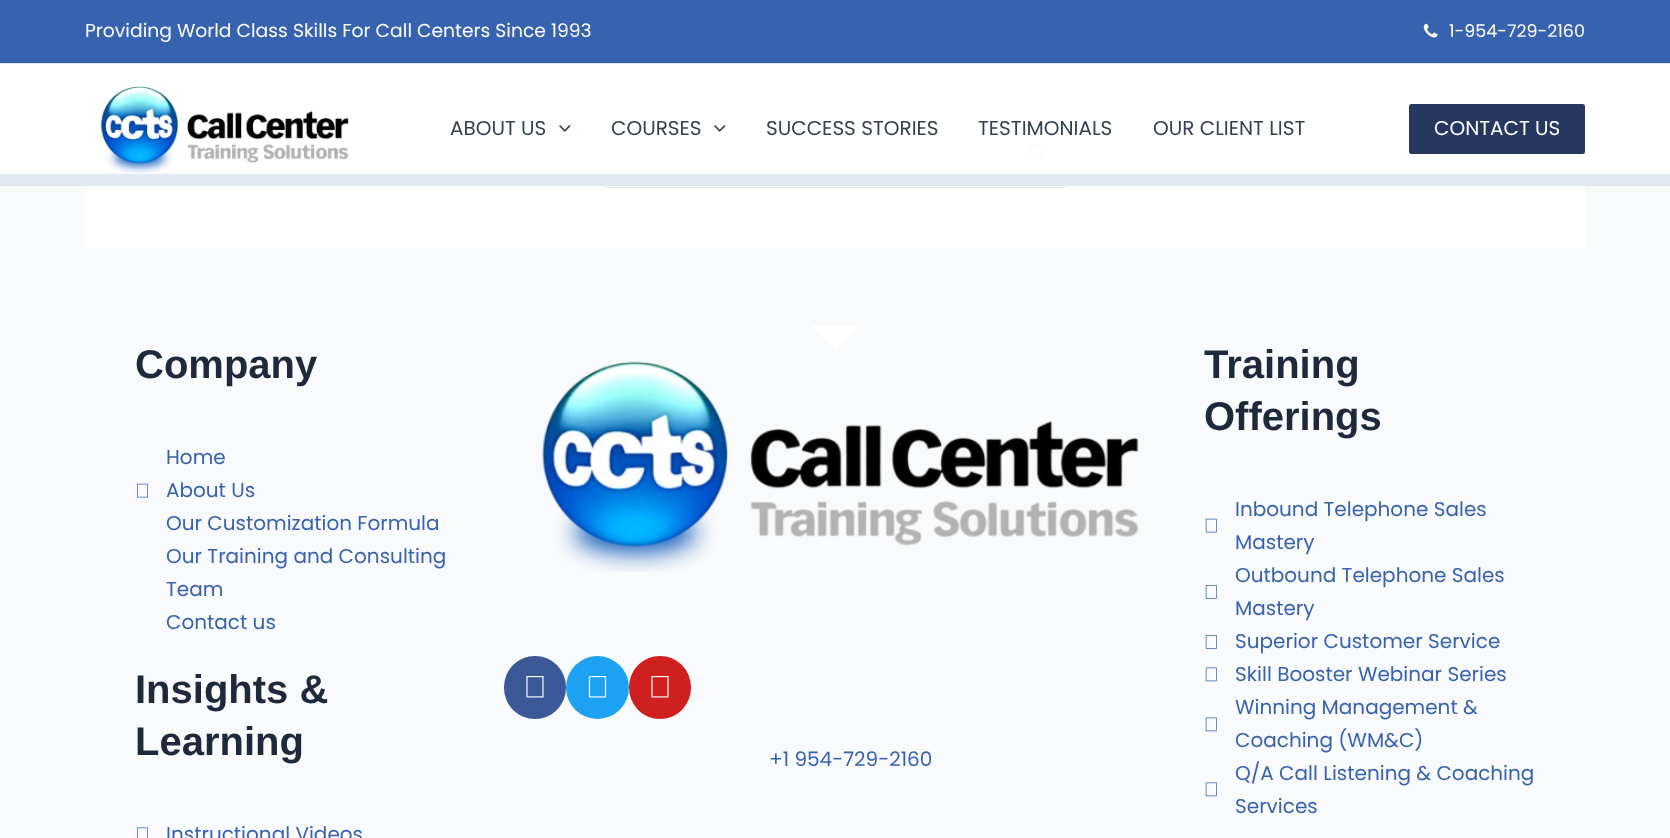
<?xml version="1.0" encoding="UTF-8"?>
<svg xmlns="http://www.w3.org/2000/svg" width="1670" height="838">
    <rect width="100%" height="100%" fill="#F9FAFB"/>
    <rect x="0" y="0" width="1670" height="63" fill="#3762AF"/>
    <rect x="0" y="63" width="1670" height="1" fill="#E2E8F0"/>
    <text x="85" y="37" font-family="Poppins" font-size="18.75" fill="#FFFFFF">Providing World Class Skills For Call Centers Since 1993</text>
    <image x="1423" y="23" width="15" height="15" href="img_01.png"/>
    <text x="1449" y="37" font-family="Poppins" font-size="17.5" fill="#FFFFFF">1-954-729-2160</text>
    <rect x="85" y="64" width="1500" height="184" fill="#FFFFFF"/>
    <rect x="604.5" y="121.5" width="461" height="66" rx="2" fill="#FAFAFA" stroke="#E2E8F0"/>
    <image x="1028" y="144" width="17" height="18" href="img_05.png"/>
    <rect x="0" y="64" width="1670" height="110" fill="#FFFFFF" fill-opacity="0.98"/>
    <rect x="0" y="174" width="1670" height="12" fill="#E2E8F0"/>
    <image x="100" y="86" width="249" height="88" href="img_02.png"/>
    <text x="450" y="135" font-family="Poppins" font-size="20" fill="#334155">ABOUT US</text>
    <image x="559" y="125" width="12" height="7" href="img_03.png"/>
    <text x="611" y="135" font-family="Poppins" font-size="20" fill="#334155">COURSES</text>
    <image x="714" y="125" width="12" height="7" href="img_04.png"/>
    <text x="766" y="135" font-family="Poppins" font-size="20" fill="#334155">SUCCESS STORIES</text>
    <text x="978" y="135" font-family="Poppins" font-size="20" fill="#334155">TESTIMONIALS</text>
    <text x="1153" y="135" font-family="Poppins" font-size="20" fill="#334155">OUR CLIENT LIST</text>
    <rect x="1409" y="104" width="176" height="50" rx="2.5" fill="#263860"/>
    <text x="1434" y="135" font-family="Poppins" font-size="20" fill="#FFFFFF">CONTACT US</text>
    <path d="M 835 350 L 811 326 H 859 Z" fill="#FFFFFF"/>
    <text x="135" y="378" font-family="Liberation Sans" font-size="40" font-weight="700" fill="#1E293B">Company</text>
    <text x="166" y="464" font-family="Poppins" font-size="20" fill="#3762AF">Home</text>
    <image x="137" y="483" width="11" height="15" href="img_06.png"/>
    <text font-family="Poppins" font-size="20" fill="#3762AF">
        <tspan x="166" y="497">About Us</tspan>
        <tspan x="166" y="530">Our Customization Formula</tspan>
        <tspan x="166" y="563">Our Training and Consulting</tspan>
        <tspan x="166" y="596">Team</tspan>
        <tspan x="166" y="629">Contact us</tspan>
    </text>
    <text font-family="Liberation Sans" font-size="40" font-weight="700" fill="#1E293B">
        <tspan x="135" y="703">Insights &amp;</tspan>
        <tspan x="135" y="755">Learning</tspan>
    </text>
    <image x="137" y="827" width="11" height="11" href="img_07.png"/>
    <text x="166" y="841" font-family="Poppins" font-size="20" fill="#3762AF">Instructional Videos</text>
    <image x="542" y="361" width="597" height="211" href="img_08.png"/>
    <rect x="504" y="656" width="62" height="63" rx="31" fill="#3B5998"/>
    <image x="526" y="676" width="18" height="22" href="img_09.png"/>
    <circle cx="597.5" cy="687.5" r="31.5" fill="#1DA1F2"/>
    <image x="588" y="676" width="19" height="22" href="img_10.png"/>
    <rect x="629" y="656" width="62" height="63" rx="31" fill="#CD201F"/>
    <image x="651" y="676" width="18" height="22" href="img_11.png"/>
    <text x="769" y="766" font-family="Poppins" font-size="20" fill="#3762AF">+1 954-729-2160</text>
    <text font-family="Liberation Sans" font-size="40" font-weight="700" fill="#1E293B">
        <tspan x="1204" y="378">Training</tspan>
        <tspan x="1204" y="430">Offerings</tspan>
    </text>
    <image x="1205" y="518" width="12" height="15" href="img_12.png"/>
    <text font-family="Poppins" font-size="20" fill="#3762AF">
        <tspan x="1235" y="516">Inbound Telephone Sales</tspan>
        <tspan x="1235" y="549">Mastery</tspan>
    </text>
    <image x="1205" y="585" width="12" height="14" href="img_13.png"/>
    <text font-family="Poppins" font-size="20" fill="#3762AF">
        <tspan x="1235" y="582">Outbound Telephone Sales</tspan>
        <tspan x="1235" y="615">Mastery</tspan>
    </text>
    <image x="1205" y="635" width="12" height="14" href="img_13.png"/>
    <text x="1235" y="648" font-family="Poppins" font-size="20" fill="#3762AF">Superior Customer Service</text>
    <image x="1205" y="667" width="12" height="15" href="img_14.png"/>
    <text x="1235" y="681" font-family="Poppins" font-size="20" fill="#3762AF">Skill Booster Webinar Series</text>
    <image x="1205" y="717" width="12" height="15" href="img_14.png"/>
    <text font-family="Poppins" font-size="20" fill="#3762AF">
        <tspan x="1235" y="714">Winning Management &amp;</tspan>
        <tspan x="1235" y="747">Coaching (WM&amp;C)</tspan>
    </text>
    <image x="1205" y="782" width="12" height="15" href="img_14.png"/>
    <text font-family="Poppins" font-size="20" fill="#3762AF">
        <tspan x="1235" y="780">Q/A Call Listening &amp; Coaching</tspan>
        <tspan x="1235" y="813">Services</tspan>
    </text>
</svg>
